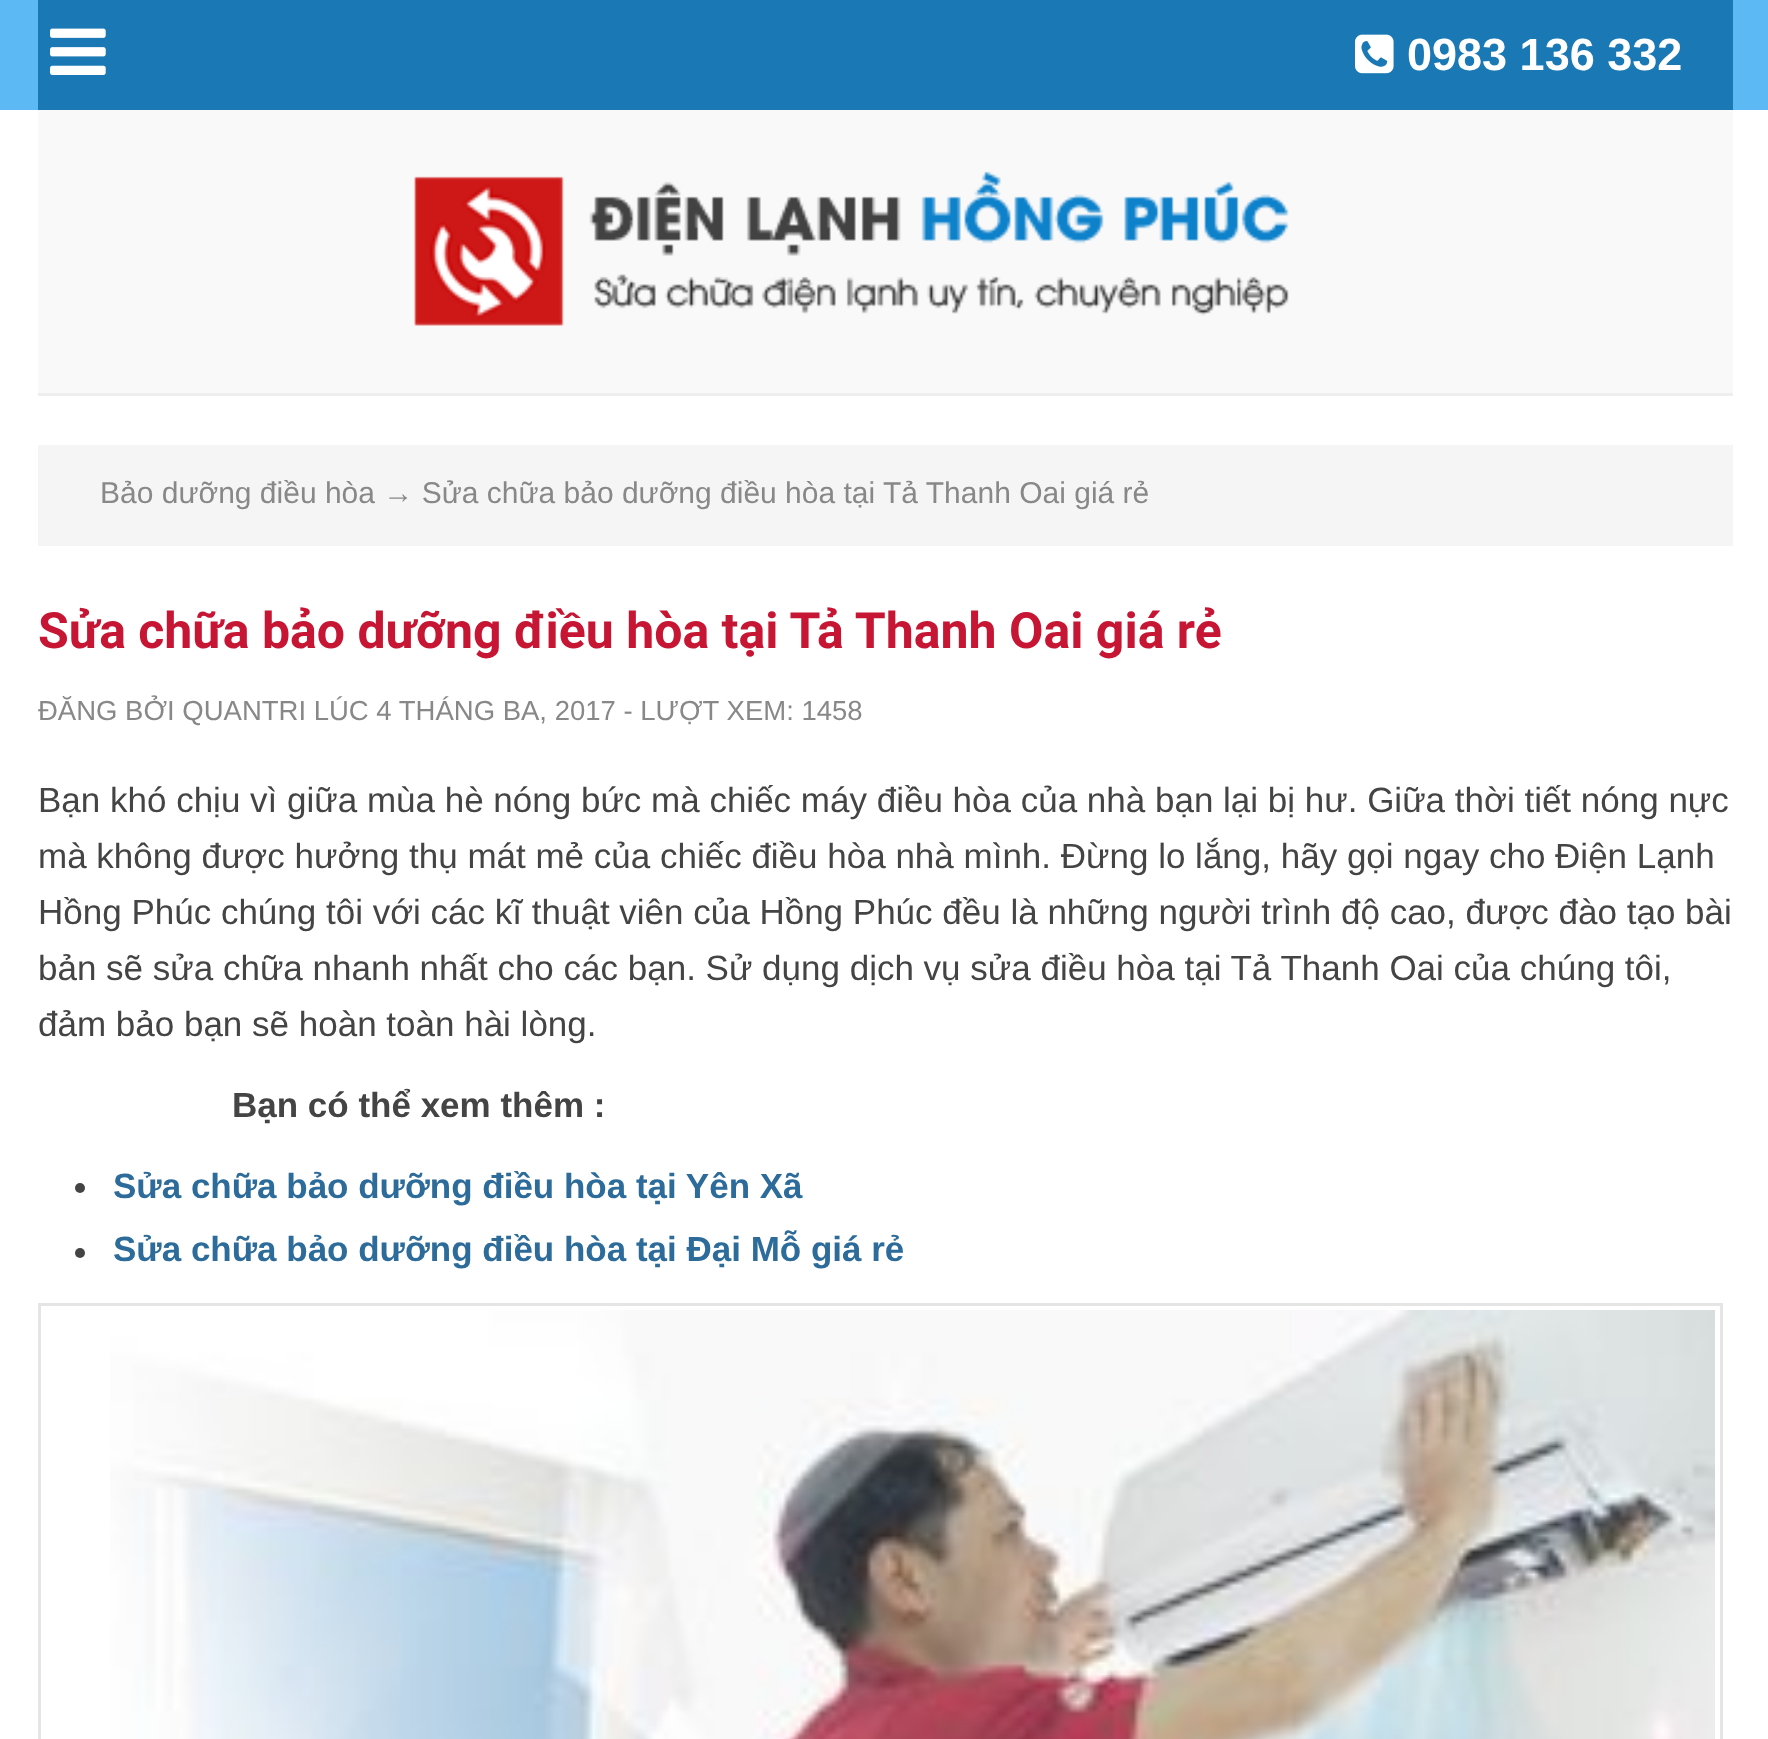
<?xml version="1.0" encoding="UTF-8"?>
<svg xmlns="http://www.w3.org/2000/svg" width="1768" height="1739">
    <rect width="100%" height="100%" fill="#FFFFFF"/>
    <rect x="0" y="0" width="1768" height="110" fill="#5CB9F3"/>
    <rect x="38" y="0" width="1695" height="110" fill="#1A79B5"/>
    <image x="50" y="28" width="56" height="47" href="img_01.png"/>
    <image x="1355" y="34" width="39" height="40" href="img_02.png"/>
    <text x="1407" y="70" font-family="Liberation Sans" font-size="45" font-weight="700" fill="#FFFFFF">0983 136 332</text>
    <rect x="38" y="110" width="1695" height="283" fill="#F9F9F9"/>
    <rect x="38" y="393" width="1695" height="3" fill="#EEEEEE"/>
    <image x="414" y="171" width="875" height="155" href="img_03.png"/>
    <rect x="38" y="445" width="1695" height="101" fill="#F5F5F5"/>
    <text x="100" y="503" font-family="Liberation Sans" font-size="30" fill="#888888">Bảo dưỡng điều hòa → Sửa chữa bảo dưỡng điều hòa tại Tả Thanh Oai giá rẻ</text>
    <text x="38" y="648" font-family="Roboto" font-size="50" font-weight="700" fill="#C61633">Sửa chữa bảo dưỡng điều hòa tại Tả Thanh Oai giá rẻ</text>
    <text x="38" y="720" font-family="Liberation Sans" font-size="27.5" fill="#888888">ĐĂNG BỞI QUANTRI LÚC 4 THÁNG BA, 2017 - LƯỢT XEM: 1458</text>
    <text font-family="Liberation Sans" font-size="35" fill="#444444">
        <tspan x="38" y="812">Bạn khó chịu vì giữa mùa hè nóng bức mà chiếc máy điều hòa của nhà bạn lại bị hư. Giữa thời tiết nóng nực</tspan>
        <tspan x="38" y="868">mà không được hưởng thụ mát mẻ của chiếc điều hòa nhà mình. Đừng lo lắng, hãy gọi ngay cho Điện Lạnh</tspan>
        <tspan x="38" y="924">Hồng Phúc chúng tôi với các kĩ thuật viên của Hồng Phúc đều là những người trình độ cao, được đào tạo bài</tspan>
        <tspan x="38" y="980">bản sẽ sửa chữa nhanh nhất cho các bạn. Sử dụng dịch vụ sửa điều hòa tại Tả Thanh Oai của chúng tôi,</tspan>
        <tspan x="38" y="1036">đảm bảo bạn sẽ hoàn toàn hài lòng.</tspan>
    </text>
    <text x="232" y="1117" font-family="Liberation Sans" font-size="35" font-weight="700" fill="#444444">Bạn có thể xem thêm :</text>
    <circle cx="80" cy="1188" r="5" fill="#444444"/>
    <text x="113" y="1198" font-family="Liberation Sans" font-size="35" font-weight="700" fill="#2D6C9A">Sửa chữa bảo dưỡng điều hòa tại Yên Xã</text>
    <circle cx="80" cy="1253" r="5" fill="#444444"/>
    <text x="113" y="1261" font-family="Liberation Sans" font-size="35" font-weight="700" fill="#2D6C9A">Sửa chữa bảo dưỡng điều hòa tại Đại Mỗ giá rẻ</text>
    <rect x="39.5" y="1304.5" width="1682" height="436" fill="none" stroke="#E5E5E5" stroke-width="3"/>
    <image x="110" y="1310" width="1605" height="429" href="img_04.png"/>
</svg>
